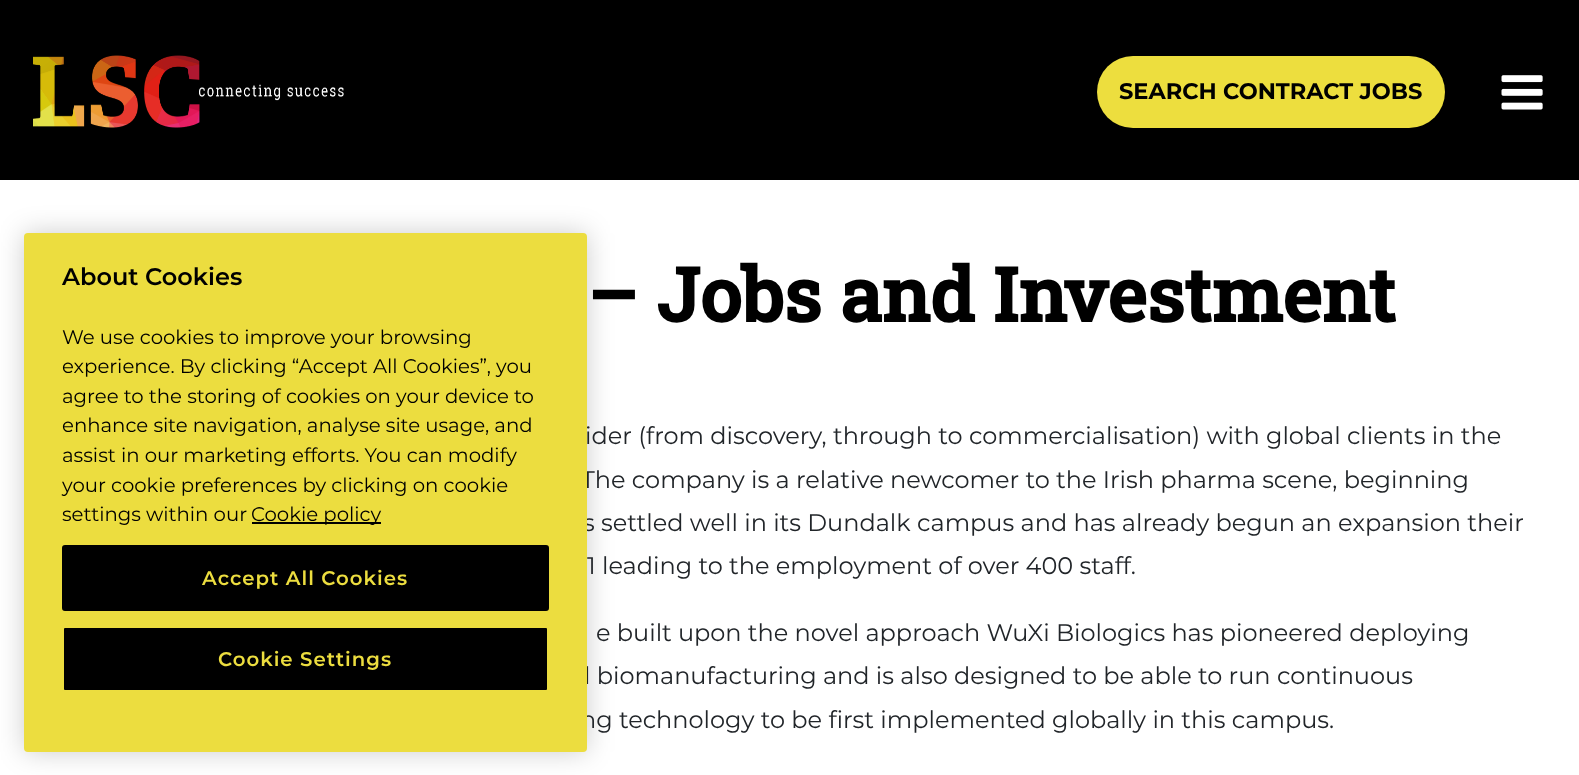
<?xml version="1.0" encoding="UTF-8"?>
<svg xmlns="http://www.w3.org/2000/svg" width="1579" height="775">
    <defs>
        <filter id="blur1" x="-50%" y="-200%" width="200%" height="500%"><feGaussianBlur stdDeviation="13.5"/></filter>
    </defs>
    <rect width="100%" height="100%" fill="#FFFFFF"/>
    <rect x="24" y="233" width="563" height="519" rx="4" fill="#000000" fill-opacity="0.2" filter="url(#blur1)"/>
    <text x="585" y="444" font-family="Montserrat" font-size="24" fill="#212529">ider (from discovery, through to commercialisation) with global clients in the</text>
    <text x="581" y="488" font-family="Montserrat" font-size="24" fill="#212529">The company is a relative newcomer to the Irish pharma scene, beginning</text>
    <text x="583" y="531" font-family="Montserrat" font-size="24" fill="#212529">s settled well in its Dundalk campus and has already begun an expansion their</text>
    <text x="584" y="684" font-family="Montserrat" font-size="24" fill="#212529">l biomanufacturing and is also designed to be able to run continuous</text>
    <text x="580" y="728" font-family="Montserrat" font-size="24" fill="#212529">ng technology to be first implemented globally in this campus.</text>
    <rect x="24" y="233" width="563" height="519" rx="4" fill="#ECDD3F"/>
    <text x="62" y="285" font-family="Montserrat" font-size="24" font-weight="600" fill="#000000">About Cookies</text>
    <text font-family="Montserrat" font-size="19.7" fill="#000000">
        <tspan x="62" y="344">We use cookies to improve your browsing</tspan>
        <tspan x="62" y="373">experience. By clicking “Accept All Cookies”, you</tspan>
        <tspan x="62" y="403">agree to the storing of cookies on your device to</tspan>
        <tspan x="62" y="432">enhance site navigation, analyse site usage, and</tspan>
        <tspan x="62" y="462">assist in our marketing efforts. You can modify</tspan>
        <tspan x="62" y="492">your cookie preferences by clicking on cookie</tspan>
        <tspan x="62" y="521">settings within our</tspan>
    </text>
    <rect x="252" y="522" width="129" height="2" fill="#000000"/>
    <text x="251" y="521" font-family="Montserrat" font-size="19.7" fill="#000000">Cookie policy</text>
    <rect x="63" y="546" width="485" height="64" rx="2" fill="#000000" stroke="#000000" stroke-width="2"/>
    <text x="202" y="585" font-family="Montserrat" font-size="19.7" font-weight="600" letter-spacing="1" fill="#ECDD3F">Accept All Cookies</text>
    <rect x="63" y="627" width="485" height="64" rx="2" fill="#000000" stroke="#ECDD3F" stroke-width="2"/>
    <text x="218" y="666" font-family="Montserrat" font-size="19.7" font-weight="600" letter-spacing="1" fill="#ECDD3F">Cookie Settings</text>
    <rect x="0" y="0" width="1579" height="180" fill="#000000"/>
    <image x="33" y="55" width="311" height="73" href="img_01.png"/>
    <rect x="1097" y="56" width="348" height="72" rx="36" fill="#EDDE3E"/>
    <text x="1119" y="99" font-family="Montserrat" font-size="22.5" font-weight="700" fill="#000000">SEARCH CONTRACT JOBS</text>
    <image x="1501" y="75" width="42" height="35" href="img_02.png"/>
    <text x="587" y="322" font-family="Roboto Slab" font-size="75" font-weight="700" fill="#000000">– Jobs and Investment</text>
    <text x="587" y="574" font-family="Montserrat" font-size="24" fill="#212529">1 leading to the employment of over 400 staff.</text>
    <text x="596" y="641" font-family="Montserrat" font-size="24" fill="#212529">e built upon the novel approach WuXi Biologics has pioneered deploying</text>
</svg>
